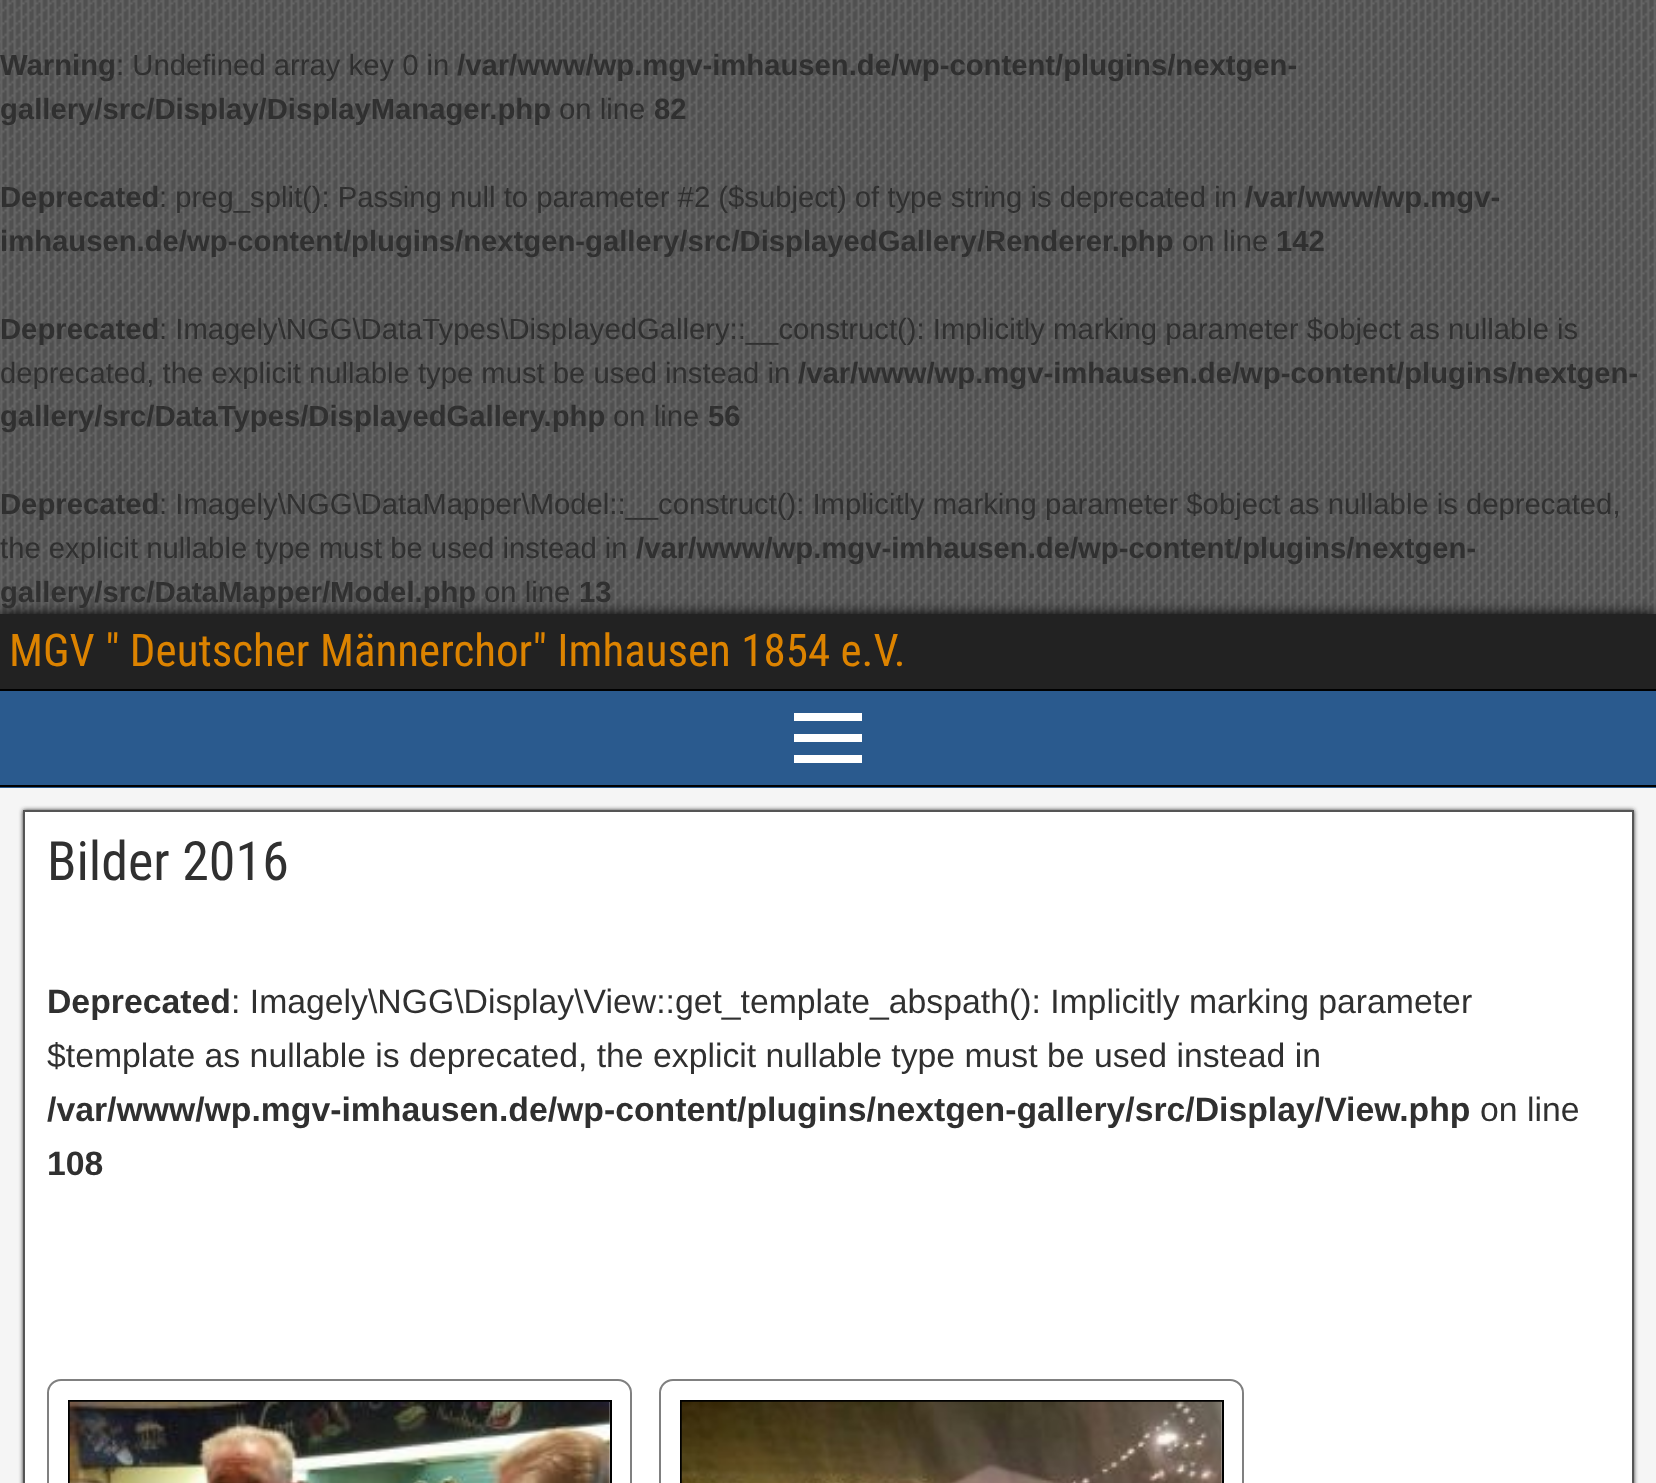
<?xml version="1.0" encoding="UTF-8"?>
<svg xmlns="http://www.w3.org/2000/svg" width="1656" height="1483">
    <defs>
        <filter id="blur1" x="-50%" y="-200%" width="200%" height="500%"><feGaussianBlur stdDeviation="7"/></filter>
        <filter id="blur2" x="-50%" y="-200%" width="200%" height="500%"><feGaussianBlur stdDeviation="2"/></filter>
    </defs>
    <rect width="100%" height="100%" fill="#505050"/>
    <image x="0" y="0" width="1656" height="614" href="img_01.png"/>
    <text x="0" y="75" font-family="Liberation Sans" font-size="29.25" font-weight="700" fill="#303030">Warning</text>
    <text x="116" y="75" font-family="Liberation Sans" font-size="29.25" fill="#303030">: Undefined array key 0 in</text>
    <text x="457" y="75" font-family="Liberation Sans" font-size="29.25" font-weight="700" fill="#303030">/var/www/wp.mgv-imhausen.de/wp-content/plugins/nextgen-</text>
    <text x="0" y="119" font-family="Liberation Sans" font-size="29.25" font-weight="700" fill="#303030">gallery/src/Display/DisplayManager.php</text>
    <text x="559" y="119" font-family="Liberation Sans" font-size="29.25" fill="#303030">on line</text>
    <text x="654" y="119" font-family="Liberation Sans" font-size="29.25" font-weight="700" fill="#303030">82</text>
    <text x="0" y="207" font-family="Liberation Sans" font-size="29.25" font-weight="700" fill="#303030">Deprecated</text>
    <text x="159" y="207" font-family="Liberation Sans" font-size="29.25" fill="#303030">: preg_split(): Passing null to parameter #2 ($subject) of type string is deprecated in</text>
    <text x="1245" y="207" font-family="Liberation Sans" font-size="29.25" font-weight="700" fill="#303030">/var/www/wp.mgv-</text>
    <text x="0" y="251" font-family="Liberation Sans" font-size="29.25" font-weight="700" fill="#303030">imhausen.de/wp-content/plugins/nextgen-gallery/src/DisplayedGallery/Renderer.php</text>
    <text x="1182" y="251" font-family="Liberation Sans" font-size="29.25" fill="#303030">on line</text>
    <text x="1276" y="251" font-family="Liberation Sans" font-size="29.25" font-weight="700" fill="#303030">142</text>
    <text x="0" y="339" font-family="Liberation Sans" font-size="29.25" font-weight="700" fill="#303030">Deprecated</text>
    <text x="159" y="339" font-family="Liberation Sans" font-size="29.25" fill="#303030">: Imagely\NGG\DataTypes\DisplayedGallery::__construct(): Implicitly marking parameter $object as nullable is</text>
    <text x="0" y="383" font-family="Liberation Sans" font-size="29.25" fill="#303030">deprecated, the explicit nullable type must be used instead in</text>
    <text x="798" y="383" font-family="Liberation Sans" font-size="29.25" font-weight="700" fill="#303030">/var/www/wp.mgv-imhausen.de/wp-content/plugins/nextgen-</text>
    <text x="0" y="426" font-family="Liberation Sans" font-size="29.25" font-weight="700" fill="#303030">gallery/src/DataTypes/DisplayedGallery.php</text>
    <text x="613" y="426" font-family="Liberation Sans" font-size="29.25" fill="#303030">on line</text>
    <text x="708" y="426" font-family="Liberation Sans" font-size="29.25" font-weight="700" fill="#303030">56</text>
    <text x="0" y="514" font-family="Liberation Sans" font-size="29.25" font-weight="700" fill="#303030">Deprecated</text>
    <text x="159" y="514" font-family="Liberation Sans" font-size="29.25" fill="#303030">: Imagely\NGG\DataMapper\Model::__construct(): Implicitly marking parameter $object as nullable is deprecated,</text>
    <text x="0" y="558" font-family="Liberation Sans" font-size="29.25" fill="#303030">the explicit nullable type must be used instead in</text>
    <text x="636" y="558" font-family="Liberation Sans" font-size="29.25" font-weight="700" fill="#303030">/var/www/wp.mgv-imhausen.de/wp-content/plugins/nextgen-</text>
    <rect x="0" y="614" width="1656" height="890" fill="#000000" filter="url(#blur1)"/>
    <text x="0" y="602" font-family="Liberation Sans" font-size="29.25" font-weight="700" fill="#303030">gallery/src/DataMapper/Model.php</text>
    <text x="484" y="602" font-family="Liberation Sans" font-size="29.25" fill="#303030">on line</text>
    <text x="579" y="602" font-family="Liberation Sans" font-size="29.25" font-weight="700" fill="#303030">13</text>
    <rect x="0" y="614" width="1656" height="75" fill="#222222"/>
    <rect x="0" y="689" width="1656" height="2" fill="#000000"/>
    <text x="9" y="666" font-family="Roboto Condensed" font-size="45" fill="#DC8300">MGV " Deutscher Männerchor" Imhausen 1854 e.V.</text>
    <rect x="0" y="691" width="1656" height="97" fill="#2A5A8E"/>
    <rect x="0" y="785" width="1656" height="2" fill="#000000"/>
    <path d="M 794 763 V 755 H 862 V 763 Z M 794 713 H 862 V 721 H 794 Z M 794 742 V 734 H 862 V 742 Z" fill="#FFFFFF"/>
    <rect x="0" y="788" width="1656" height="695" fill="#F5F5F5"/>
    <rect x="23" y="810" width="1611" height="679" fill="#333333" filter="url(#blur2)"/>
    <rect x="24" y="811" width="1609" height="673" fill="#FFFFFF" stroke="#555555" stroke-width="2"/>
    <text x="47" y="880" font-family="Roboto Condensed" font-size="54" fill="#303030">Bilder 2016</text>
    <text x="47" y="1013" font-family="Arimo" font-size="33.75" font-weight="700" fill="#303030">Deprecated</text>
    <text x="231" y="1013" font-family="Arimo" font-size="33.75" fill="#303030">: Imagely\NGG\Display\View::get_template_abspath(): Implicitly marking parameter</text>
    <text x="47" y="1067" font-family="Arimo" font-size="33.75" fill="#303030">$template as nullable is deprecated, the explicit nullable type must be used instead in</text>
    <text x="47" y="1121" font-family="Arimo" font-size="33.75" font-weight="700" fill="#303030">/var/www/wp.mgv-imhausen.de/wp-content/plugins/nextgen-gallery/src/Display/View.php</text>
    <text x="1480" y="1121" font-family="Arimo" font-size="33.75" fill="#303030">on line</text>
    <text x="47" y="1175" font-family="Arimo" font-size="33.75" font-weight="700" fill="#303030">108</text>
    <rect x="48" y="1380" width="583" height="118" rx="13" fill="none" stroke="#808080" stroke-width="2"/>
    <rect x="69" y="1401" width="542" height="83" fill="none" stroke="#000000" stroke-width="2"/>
    <image x="69" y="1401" width="541" height="82" href="img_02.png"/>
    <rect x="660" y="1380" width="583" height="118" rx="13" fill="none" stroke="#808080" stroke-width="2"/>
    <rect x="681" y="1401" width="542" height="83" fill="none" stroke="#000000" stroke-width="2"/>
    <image x="681" y="1401" width="541" height="82" href="img_03.png"/>
</svg>
